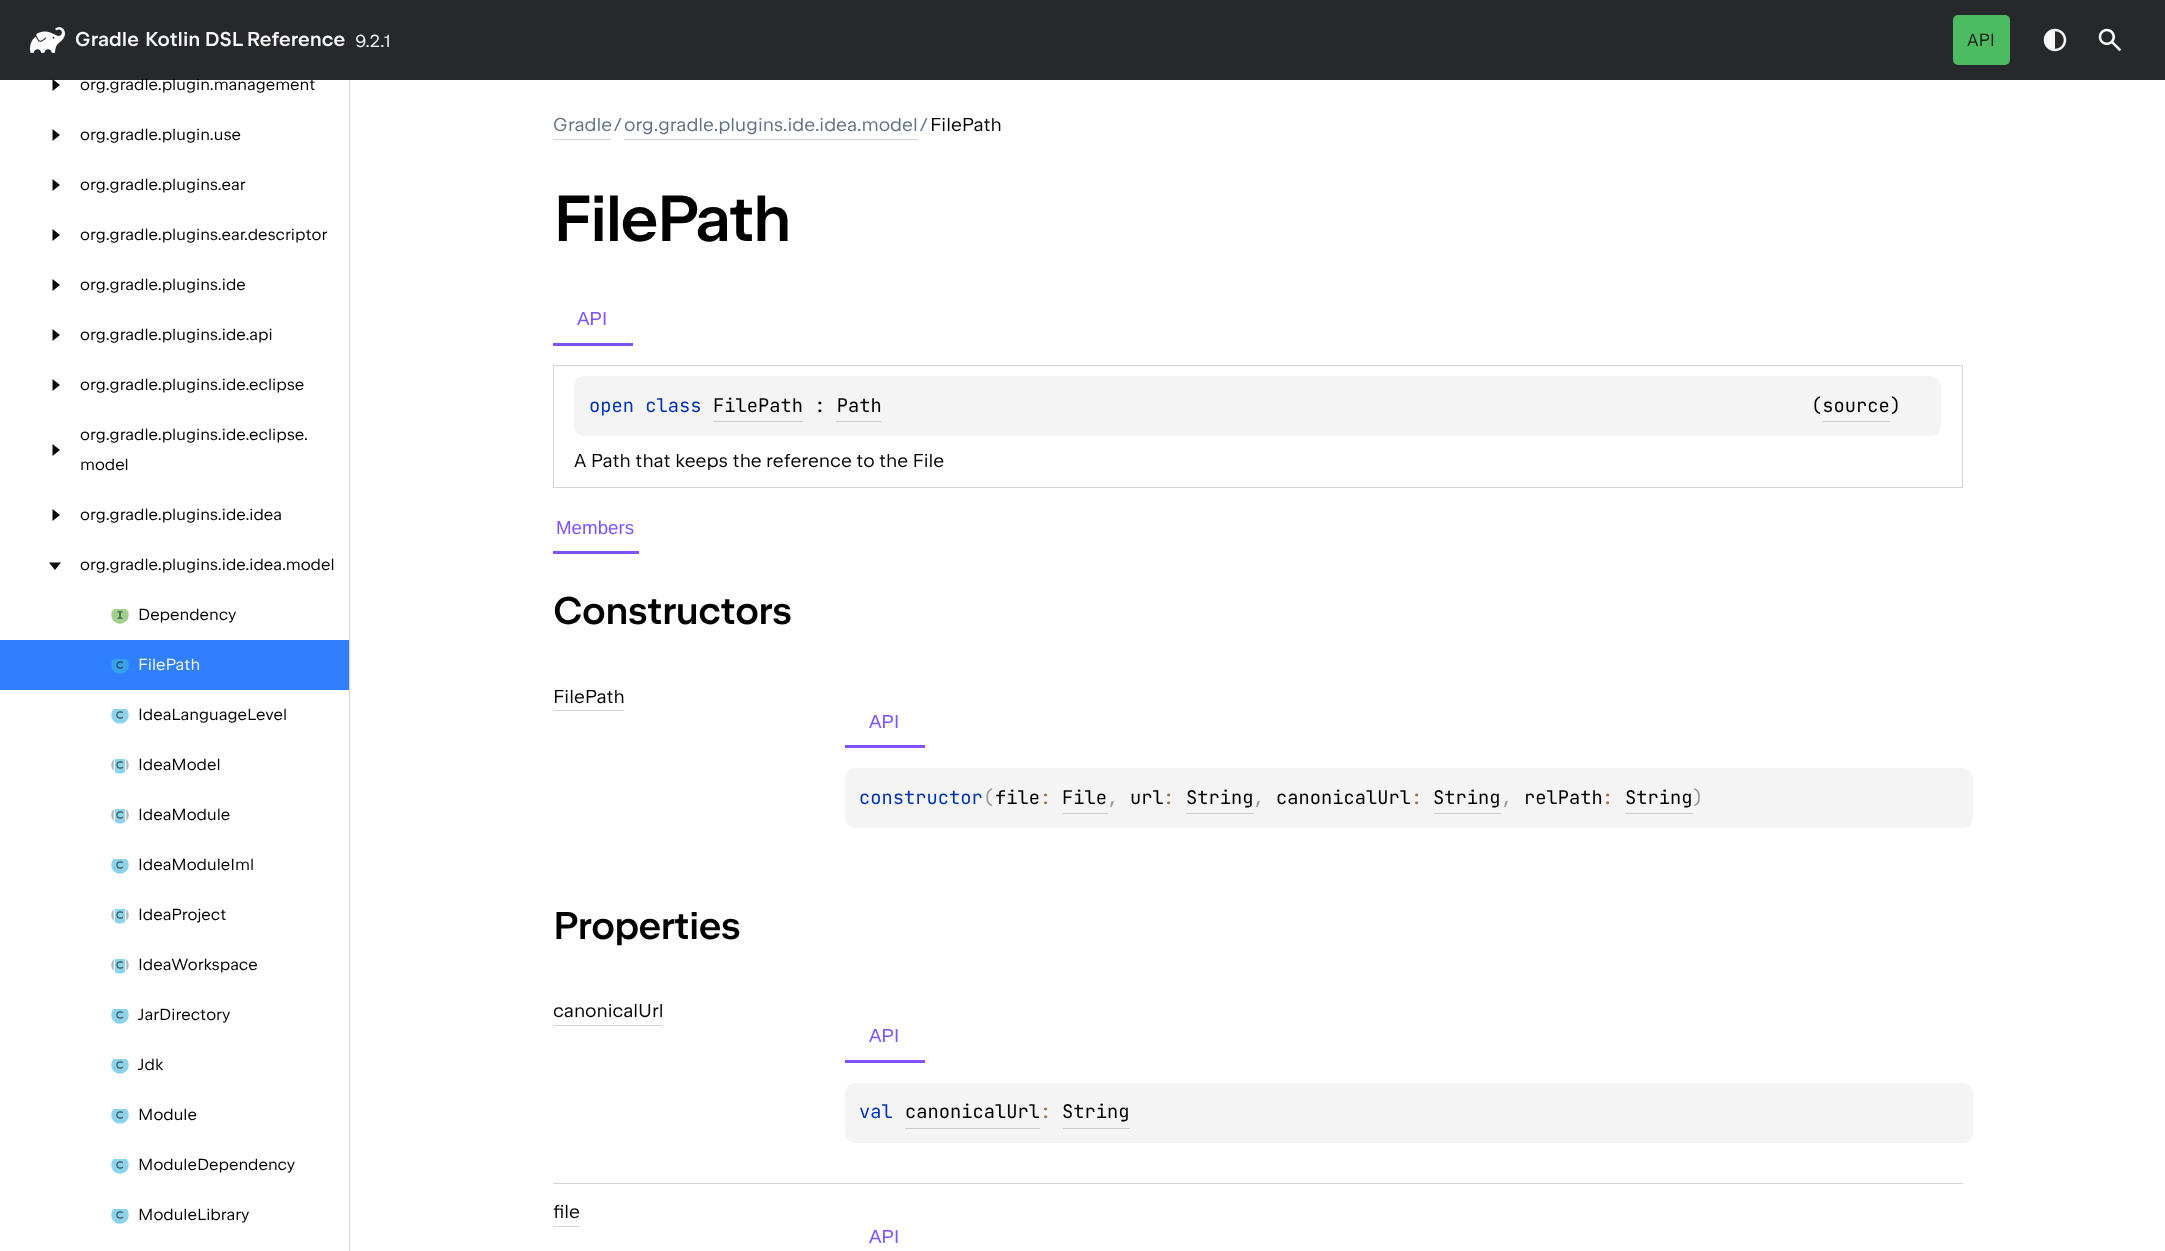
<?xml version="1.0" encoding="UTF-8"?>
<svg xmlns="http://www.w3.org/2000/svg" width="2165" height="1251">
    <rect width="100%" height="100%" fill="#FFFFFF"/>
    <rect x="0" y="0" width="2165" height="80" fill="#27282C"/>
    <image x="30" y="27" width="35" height="26" href="img_01.png"/>
    <text x="75" y="46" font-family="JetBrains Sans" font-size="20" font-weight="600" fill="#F6F6F7">Gradle</text>
    <text x="145" y="46" font-family="JetBrains Sans" font-size="20" font-weight="600" fill="#F6F6F7">Kotlin DSL Reference</text>
    <text x="355" y="47" font-family="JetBrains Sans" font-size="17.5" fill="#F6F6F7">9.2.1</text>
    <rect x="1953" y="15" width="57" height="50" rx="5" fill="#4DBB5F"/>
    <text x="1967" y="46" font-family="JetBrains Sans" font-size="17.5" fill="#19191C">API</text>
    <image x="2043" y="28" width="24" height="24" href="img_02.png"/>
    <image x="2098" y="28" width="24" height="24" href="img_03.png"/>
    <rect x="349" y="80" width="1" height="1171" fill="#D4D4D5"/>
    <path d="M 60 85 L 52.5 91 V 79 Z" fill="#0A0A0A"/>
    <text x="80" y="90" font-family="JetBrains Sans" font-size="16.25" fill="#000000">org.gradle.plugin.management</text>
    <path d="M 60 135 L 52.5 141 V 129 Z" fill="#0A0A0A"/>
    <text x="80" y="140" font-family="JetBrains Sans" font-size="16.25" fill="#000000">org.gradle.plugin.use</text>
    <path d="M 60 185 L 52.5 191 V 179 Z" fill="#0A0A0A"/>
    <text x="80" y="190" font-family="JetBrains Sans" font-size="16.25" fill="#000000">org.gradle.plugins.ear</text>
    <path d="M 60 235 L 52.5 241 V 229 Z" fill="#0A0A0A"/>
    <text x="80" y="240" font-family="JetBrains Sans" font-size="16.25" fill="#000000">org.gradle.plugins.ear.descriptor</text>
    <path d="M 60 285 L 52.5 291 V 279 Z" fill="#0A0A0A"/>
    <text x="80" y="290" font-family="JetBrains Sans" font-size="16.25" fill="#000000">org.gradle.plugins.ide</text>
    <path d="M 60 335 L 52.5 341 V 329 Z" fill="#0A0A0A"/>
    <text x="80" y="340" font-family="JetBrains Sans" font-size="16.25" fill="#000000">org.gradle.plugins.ide.api</text>
    <path d="M 60 385 L 52.5 391 V 379 Z" fill="#0A0A0A"/>
    <text x="80" y="390" font-family="JetBrains Sans" font-size="16.25" fill="#000000">org.gradle.plugins.ide.eclipse</text>
    <path d="M 60 450 L 52.5 456 V 444 Z" fill="#0A0A0A"/>
    <text font-family="JetBrains Sans" font-size="16.25" fill="#000000">
        <tspan x="80" y="440">org.gradle.plugins.ide.eclipse.</tspan>
        <tspan x="80" y="470">model</tspan>
    </text>
    <path d="M 60 515 L 52.5 521 V 509 Z" fill="#0A0A0A"/>
    <text x="80" y="520" font-family="JetBrains Sans" font-size="16.25" fill="#000000">org.gradle.plugins.ide.idea</text>
    <path d="M 55 570 L 49 562.5 H 61 Z" fill="#0A0A0A"/>
    <text x="80" y="570" font-family="JetBrains Sans" font-size="16.25" fill="#000000">org.gradle.plugins.ide.idea.model</text>
    <image x="111" y="609" width="18" height="15" href="img_04.png"/>
    <text x="138" y="620" font-family="JetBrains Sans" font-size="16.25" fill="#000000">Dependency</text>
    <rect x="0" y="640" width="349" height="50" fill="#307FFF"/>
    <image x="111" y="659" width="18" height="15" href="img_05.png"/>
    <text x="138" y="670" font-family="JetBrains Sans" font-size="16.25" fill="#F7FAFF">FilePath</text>
    <image x="111" y="709" width="18" height="15" href="img_06.png"/>
    <text x="138" y="720" font-family="JetBrains Sans" font-size="16.25" fill="#000000">IdeaLanguageLevel</text>
    <image x="111" y="759" width="18" height="15" href="img_07.png"/>
    <text x="138" y="770" font-family="JetBrains Sans" font-size="16.25" fill="#000000">IdeaModel</text>
    <image x="111" y="809" width="18" height="15" href="img_07.png"/>
    <text x="138" y="820" font-family="JetBrains Sans" font-size="16.25" fill="#000000">IdeaModule</text>
    <image x="111" y="859" width="18" height="15" href="img_06.png"/>
    <text x="138" y="870" font-family="JetBrains Sans" font-size="16.25" fill="#000000">IdeaModuleIml</text>
    <image x="111" y="909" width="18" height="15" href="img_07.png"/>
    <text x="138" y="920" font-family="JetBrains Sans" font-size="16.25" fill="#000000">IdeaProject</text>
    <image x="111" y="959" width="18" height="15" href="img_07.png"/>
    <text x="138" y="970" font-family="JetBrains Sans" font-size="16.25" fill="#000000">IdeaWorkspace</text>
    <image x="111" y="1009" width="18" height="15" href="img_06.png"/>
    <text x="138" y="1020" font-family="JetBrains Sans" font-size="16.25" fill="#000000">JarDirectory</text>
    <image x="111" y="1059" width="18" height="15" href="img_06.png"/>
    <text x="138" y="1070" font-family="JetBrains Sans" font-size="16.25" fill="#000000">Jdk</text>
    <image x="111" y="1109" width="18" height="15" href="img_08.png"/>
    <text x="138" y="1120" font-family="JetBrains Sans" font-size="16.25" fill="#000000">Module</text>
    <image x="111" y="1159" width="18" height="15" href="img_06.png"/>
    <text x="138" y="1170" font-family="JetBrains Sans" font-size="16.25" fill="#000000">ModuleDependency</text>
    <image x="111" y="1209" width="18" height="15" href="img_06.png"/>
    <text x="138" y="1220" font-family="JetBrains Sans" font-size="16.25" fill="#000000">ModuleLibrary</text>
    <text x="553" y="131" font-family="JetBrains Sans" font-size="18.75" fill="#637282">Gradle</text>
    <rect x="553" y="139" width="58" height="1" fill="#D4D4D5"/>
    <text x="614" y="131" font-family="JetBrains Sans" font-size="18.75" fill="#637282">/</text>
    <text x="624" y="131" font-family="JetBrains Sans" font-size="18.75" fill="#637282">org.gradle.plugins.ide.idea.model</text>
    <rect x="624" y="139" width="294" height="1" fill="#D4D4D5"/>
    <text x="920" y="131" font-family="JetBrains Sans" font-size="18.75" fill="#637282">/</text>
    <text x="930" y="131" font-family="JetBrains Sans" font-size="18.75" fill="#000000">FilePath</text>
    <text x="553" y="241" font-family="JetBrains Sans" font-size="65" font-weight="500" letter-spacing="-2" fill="#000000">FilePath</text>
    <rect x="553" y="343" width="80" height="3" fill="#7F52FF"/>
    <text x="577" y="325" font-family="Liberation Sans" font-size="18.75" fill="#7F52FF">API</text>
    <rect x="553.5" y="365.5" width="1409" height="122" fill="none" stroke="#D4D4D5"/>
    <rect x="574" y="376" width="1367" height="60" rx="10" fill="#F4F4F5"/>
    <text x="589" y="412" font-family="JetBrains Mono" font-size="18.75" fill="#0033B3">open class</text>
    <text x="713" y="412" font-family="JetBrains Mono" font-size="18.75" fill="#000000">FilePath : Path</text>
    <rect x="713" y="421" width="90" height="1" fill="#CBCBCD"/>
    <text x="1811" y="412" font-family="JetBrains Mono" font-size="18.75" fill="#000000">(source)</text>
    <rect x="1823" y="421" width="67" height="1" fill="#CBCBCD"/>
    <rect x="836" y="421" width="45" height="1" fill="#CBCBCD"/>
    <text x="574" y="467" font-family="JetBrains Sans" font-size="18.75" fill="#000000">A Path that keeps the reference to the File</text>
    <rect x="553" y="551" width="86" height="3" fill="#7F52FF"/>
    <text x="556" y="534" font-family="Liberation Sans" font-size="18.75" fill="#7F52FF">Members</text>
    <text x="553" y="624" font-family="JetBrains Sans" font-size="38.75" font-weight="500" letter-spacing="-0.6" fill="#000000">Constructors</text>
    <text x="553" y="703" font-family="JetBrains Sans" font-size="18.75" fill="#000000">FilePath</text>
    <rect x="553" y="710" width="71" height="1" fill="#D4D4D5"/>
    <rect x="845" y="745" width="80" height="3" fill="#7F52FF"/>
    <text x="869" y="728" font-family="Liberation Sans" font-size="18.75" fill="#7F52FF">API</text>
    <rect x="845" y="768" width="1128" height="60" rx="10" fill="#F4F4F4"/>
    <text x="859" y="804" font-family="JetBrains Mono" font-size="18.75" fill="#0033B3">constructor</text>
    <text x="983" y="804" font-family="JetBrains Mono" font-size="18.75" fill="#999999">(</text>
    <text x="995" y="804" font-family="JetBrains Mono" font-size="18.75" fill="#000000">file</text>
    <text x="1040" y="804" font-family="JetBrains Mono" font-size="18.75" fill="#9A6E3A">:</text>
    <text x="1062" y="804" font-family="JetBrains Mono" font-size="18.75" fill="#000000">File</text>
    <text x="1107" y="804" font-family="JetBrains Mono" font-size="18.75" fill="#999999">,</text>
    <rect x="1063" y="813" width="45" height="1" fill="#CBCBCC"/>
    <text x="1130" y="804" font-family="JetBrains Mono" font-size="18.75" fill="#000000">url</text>
    <text x="1163" y="804" font-family="JetBrains Mono" font-size="18.75" fill="#9A6E3A">:</text>
    <text x="1186" y="804" font-family="JetBrains Mono" font-size="18.75" fill="#000000">String</text>
    <text x="1253" y="804" font-family="JetBrains Mono" font-size="18.75" fill="#999999">,</text>
    <rect x="1186" y="813" width="68" height="1" fill="#CBCBCC"/>
    <text x="1276" y="804" font-family="JetBrains Mono" font-size="18.75" fill="#000000">canonicalUrl</text>
    <text x="1411" y="804" font-family="JetBrains Mono" font-size="18.75" fill="#9A6E3A">:</text>
    <text x="1433" y="804" font-family="JetBrains Mono" font-size="18.75" fill="#000000">String</text>
    <text x="1501" y="804" font-family="JetBrains Mono" font-size="18.75" fill="#999999">,</text>
    <rect x="1434" y="813" width="67" height="1" fill="#CBCBCC"/>
    <text x="1524" y="804" font-family="JetBrains Mono" font-size="18.75" fill="#000000">relPath</text>
    <text x="1602" y="804" font-family="JetBrains Mono" font-size="18.75" fill="#9A6E3A">:</text>
    <text x="1625" y="804" font-family="JetBrains Mono" font-size="18.75" fill="#000000">String</text>
    <rect x="1625" y="813" width="68" height="1" fill="#CBCBCC"/>
    <text x="1692" y="804" font-family="JetBrains Mono" font-size="18.75" fill="#999999">)</text>
    <text x="553" y="939" font-family="JetBrains Sans" font-size="38.75" font-weight="500" letter-spacing="-0.6" fill="#000000">Properties</text>
    <rect x="553" y="1183" width="1410" height="1" fill="#D4D4D5"/>
    <text x="553" y="1017" font-family="JetBrains Sans" font-size="18.75" fill="#000000">canonicalUrl</text>
    <rect x="553" y="1025" width="110" height="1" fill="#D4D4D5"/>
    <rect x="845" y="1060" width="80" height="3" fill="#7F52FF"/>
    <text x="869" y="1042" font-family="Liberation Sans" font-size="18.75" fill="#7F52FF">API</text>
    <rect x="845" y="1083" width="1128" height="60" rx="10" fill="#F4F4F4"/>
    <text x="859" y="1118" font-family="JetBrains Mono" font-size="18.75" fill="#0033B3">val</text>
    <text x="905" y="1118" font-family="JetBrains Mono" font-size="18.75" fill="#000000">canonicalUrl</text>
    <rect x="905" y="1128" width="135" height="1" fill="#CBCBCC"/>
    <text x="1040" y="1118" font-family="JetBrains Mono" font-size="18.75" fill="#9A6E3A">:</text>
    <text x="1062" y="1118" font-family="JetBrains Mono" font-size="18.75" fill="#000000">String</text>
    <rect x="1063" y="1128" width="67" height="1" fill="#CBCBCC"/>
    <text x="553" y="1218" font-family="JetBrains Sans" font-size="18.75" fill="#000000">file</text>
    <rect x="553" y="1226" width="27" height="1" fill="#D4D4D5"/>
    <text x="869" y="1243" font-family="Liberation Sans" font-size="18.75" fill="#7F52FF">API</text>
</svg>
